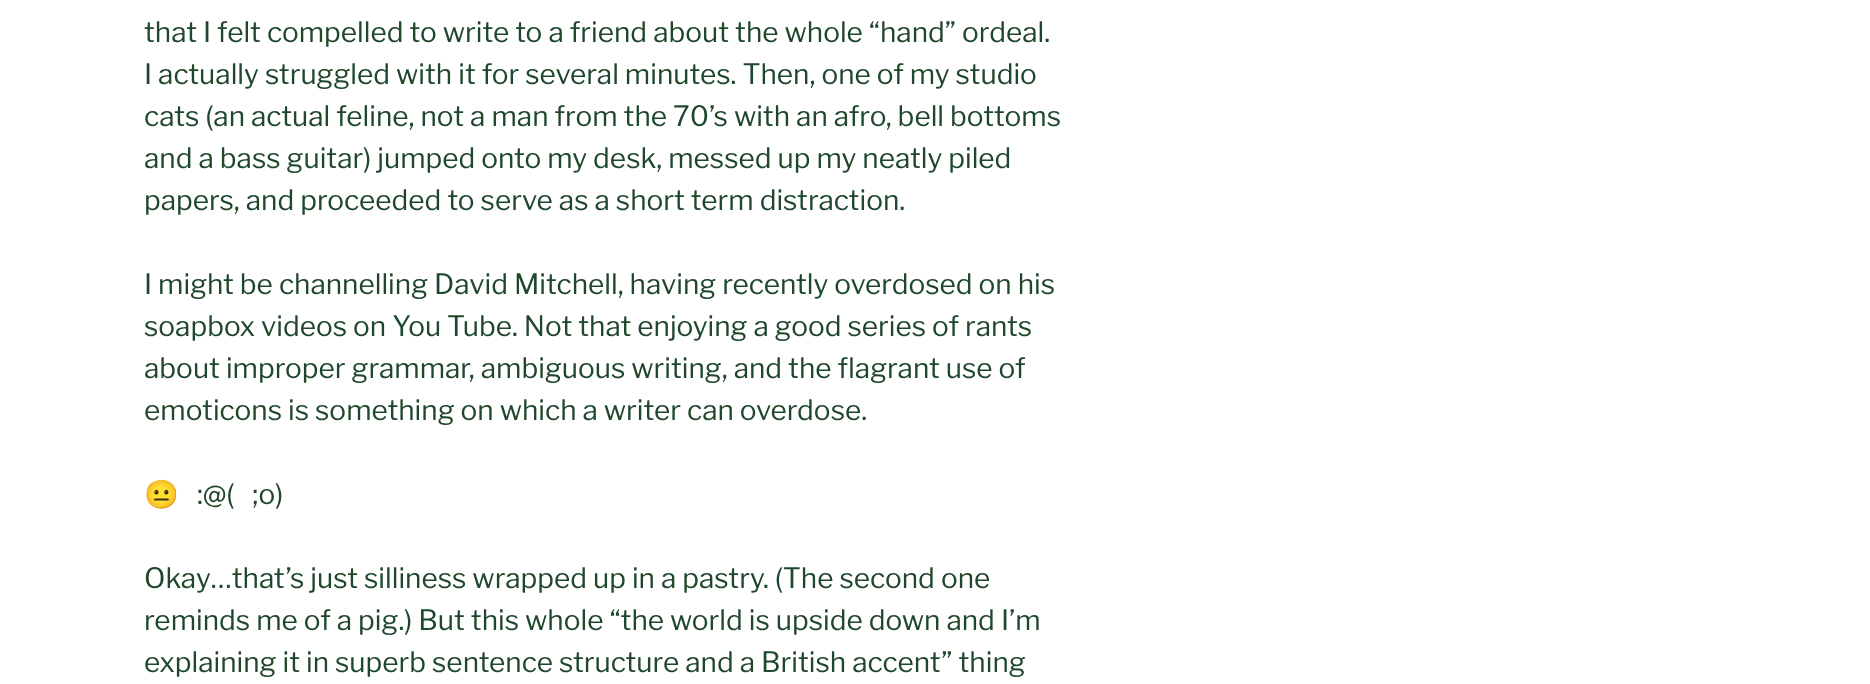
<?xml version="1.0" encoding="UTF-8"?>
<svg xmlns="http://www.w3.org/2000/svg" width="1870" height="684">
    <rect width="100%" height="100%" fill="#FFFFFF"/>
    <text font-family="Libre Franklin" font-size="28" font-weight="100" fill="#1F472B">
        <tspan x="144" y="42">that I felt compelled to write to a friend about the whole “hand” ordeal.</tspan>
        <tspan x="144" y="84">I actually struggled with it for several minutes. Then, one of my studio</tspan>
        <tspan x="144" y="126">cats (an actual feline, not a man from the 70’s with an afro, bell bottoms</tspan>
        <tspan x="144" y="168">and a bass guitar) jumped onto my desk, messed up my neatly piled</tspan>
        <tspan x="144" y="210">papers, and proceeded to serve as a short term distraction.</tspan>
    </text>
    <text font-family="Libre Franklin" font-size="28" font-weight="100" fill="#1F472B">
        <tspan x="144" y="294">I might be channelling David Mitchell, having recently overdosed on his</tspan>
        <tspan x="144" y="336">soapbox videos on You Tube. Not that enjoying a good series of rants</tspan>
        <tspan x="144" y="378">about improper grammar, ambiguous writing, and the flagrant use of</tspan>
        <tspan x="144" y="420">emoticons is something on which a writer can overdose.</tspan>
    </text>
    <text x="144" y="504" font-family="Noto Color Emoji" font-size="28" fill="#1F472B">😐</text>
    <text x="197" y="504" font-family="Libre Franklin" font-size="28" font-weight="100" fill="#1F472B" xml:space="preserve">:@(   ;o)</text>
    <text font-family="Libre Franklin" font-size="28" font-weight="100" fill="#1F472B">
        <tspan x="144" y="588">Okay…that’s just silliness wrapped up in a pastry. (The second one</tspan>
        <tspan x="144" y="630">reminds me of a pig.) But this whole “the world is upside down and I’m</tspan>
        <tspan x="144" y="672">explaining it in superb sentence structure and a British accent” thing</tspan>
    </text>
</svg>
